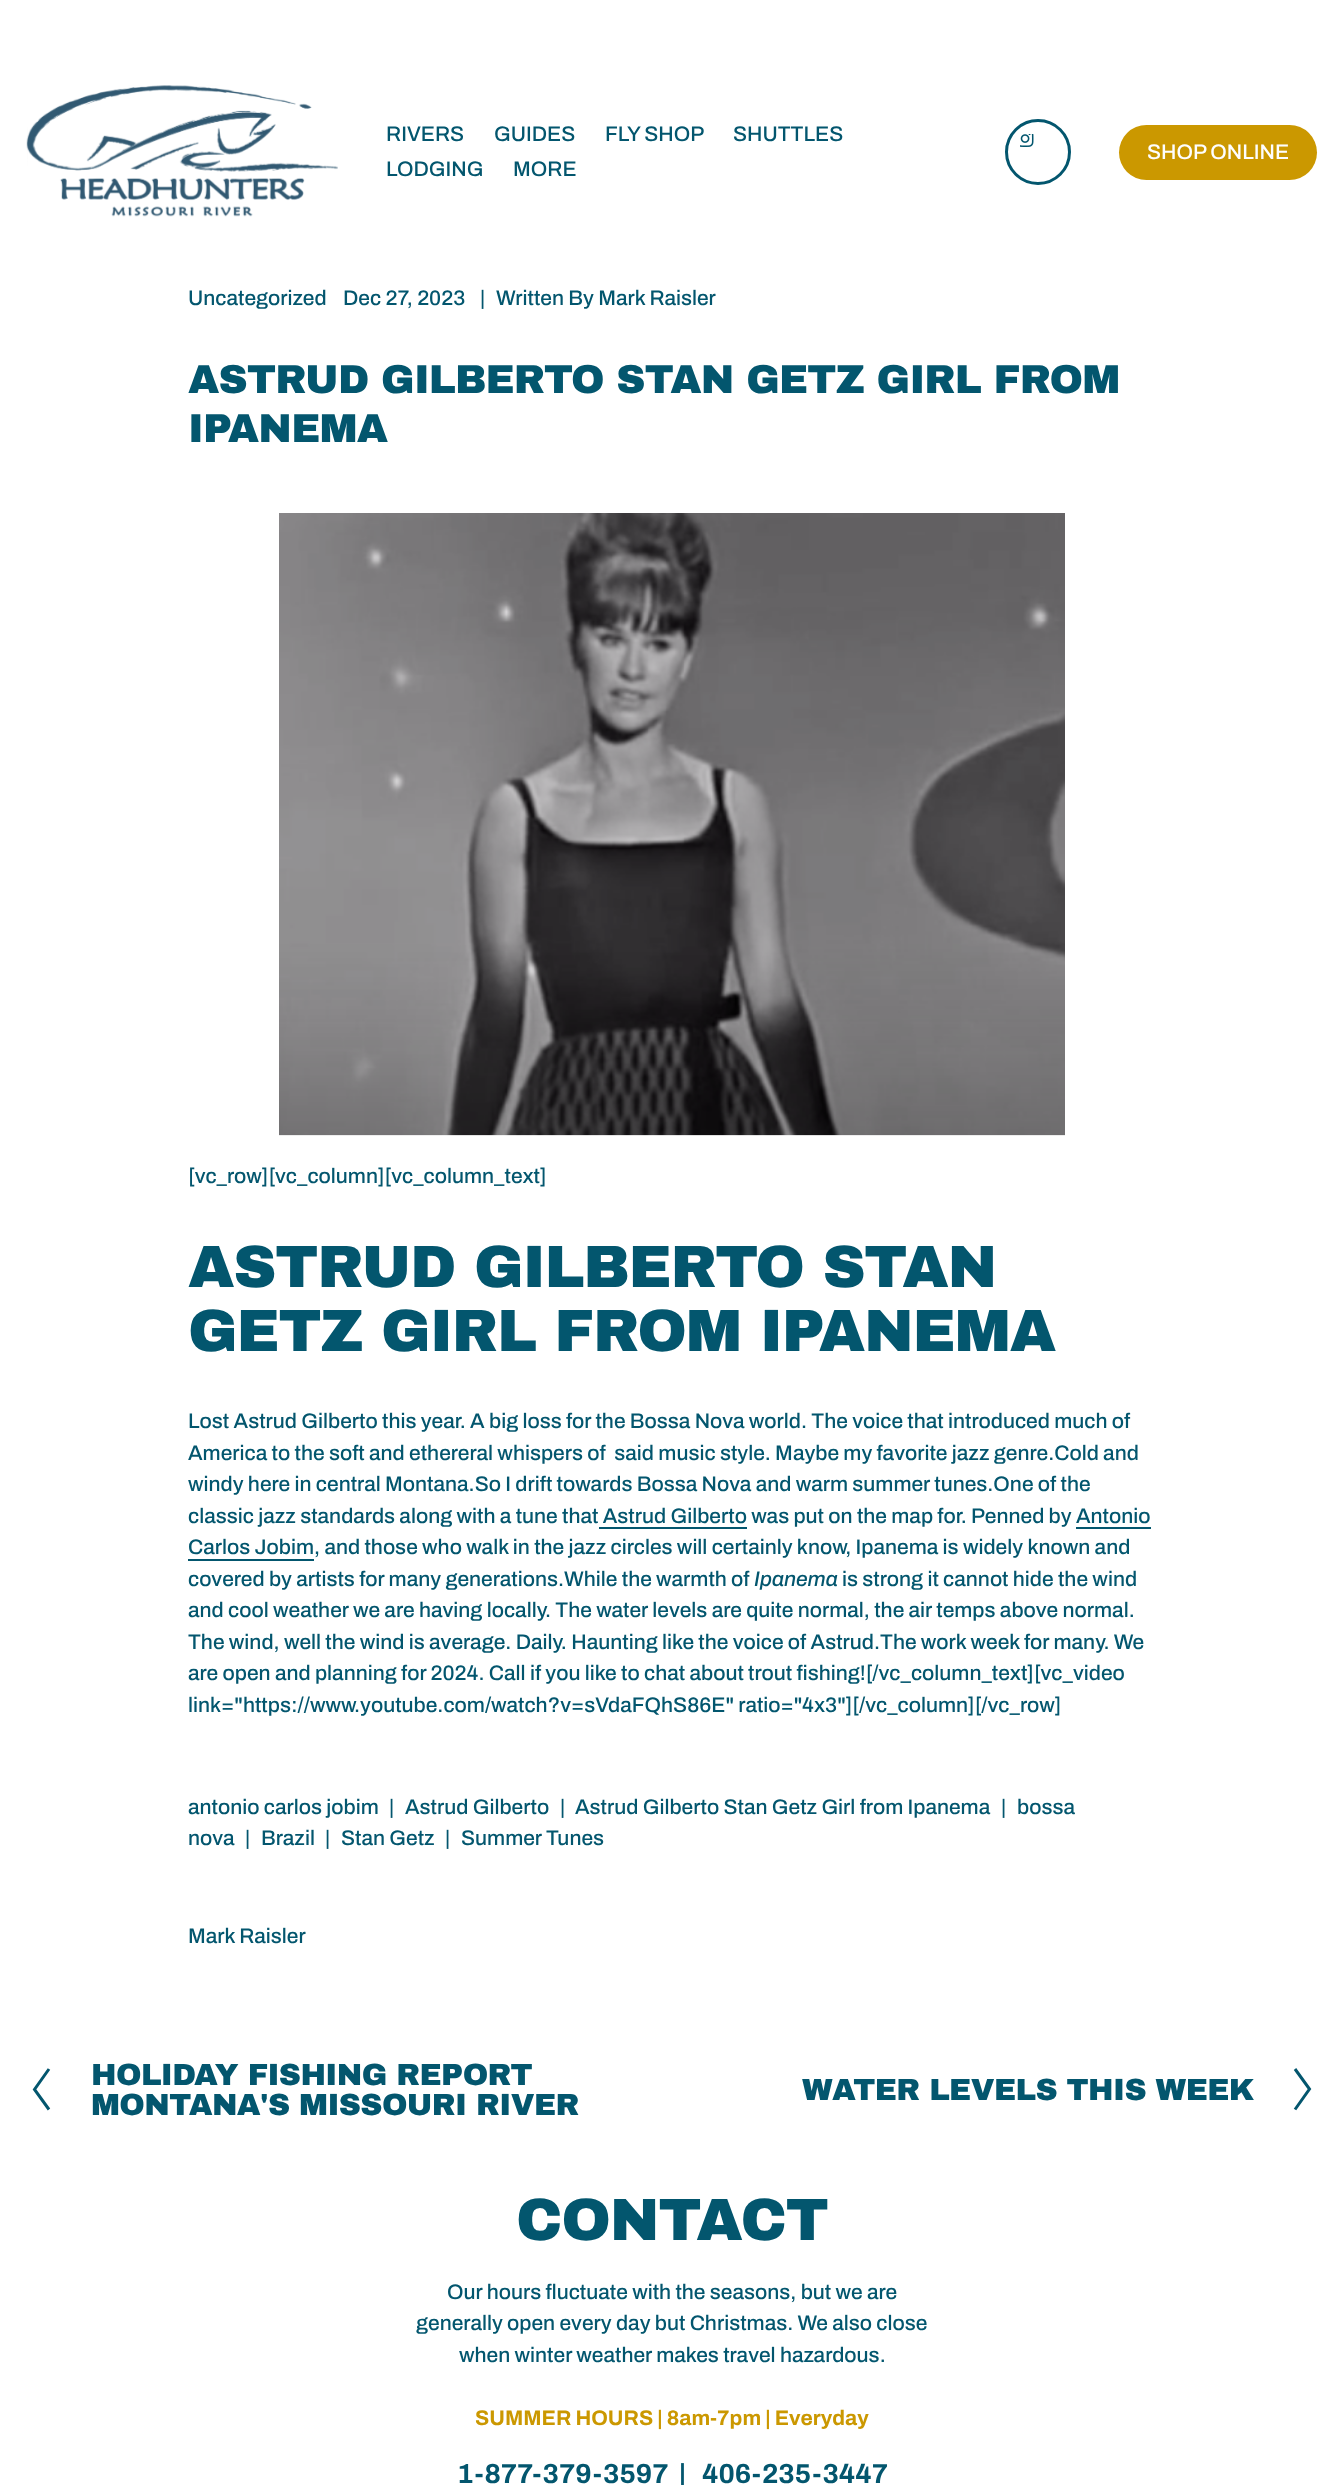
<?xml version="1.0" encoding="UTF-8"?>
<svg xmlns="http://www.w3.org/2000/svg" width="1344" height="2485">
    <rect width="100%" height="100%" fill="#FFFFFF"/>
    <image x="26" y="85" width="312" height="132" href="img_01.png"/>
    <text x="386" y="141" font-family="Archivo" font-size="21" font-weight="500" fill="#03566E">RIVERS</text>
    <text x="494" y="141" font-family="Archivo" font-size="21" font-weight="500" fill="#03566E">GUIDES</text>
    <text x="605" y="141" font-family="Archivo" font-size="21" font-weight="500" fill="#03566E">FLY SHOP</text>
    <text x="733" y="141" font-family="Archivo" font-size="21" font-weight="500" fill="#03566E">SHUTTLES</text>
    <text x="386" y="176" font-family="Archivo" font-size="21" font-weight="500" fill="#03566E">LODGING</text>
    <text x="513" y="176" font-family="Archivo" font-size="21" font-weight="500" fill="#03566E">MORE</text>
    <circle cx="1038" cy="152" r="31.5" fill="none" stroke="#03566E" stroke-width="3"/>
    <image x="1020" y="134" width="14" height="13" href="img_02.png"/>
    <rect x="1119" y="125" width="198" height="55" rx="27.5" fill="#CB9800"/>
    <text x="1147" y="159" font-family="Archivo" font-size="21" font-weight="500" fill="#FEFEFE">SHOP ONLINE</text>
    <text x="188" y="305" font-family="Archivo" font-size="21" font-weight="500" fill="#03566E">Uncategorized</text>
    <text x="343" y="305" font-family="Archivo" font-size="21" font-weight="500" fill="#03566E">Dec 27, 2023</text>
    <text x="480" y="305" font-family="Archivo" font-size="21" font-weight="500" fill="#03566E">|</text>
    <text x="496" y="305" font-family="Archivo" font-size="21" font-weight="500" fill="#03566E">Written By Mark Raisler</text>
    <text font-family="Archivo Black" font-size="40.35" font-weight="900" letter-spacing="-0.8" fill="#03566E">
        <tspan x="188" y="393">ASTRUD GILBERTO STAN GETZ GIRL FROM</tspan>
        <tspan x="188" y="442">IPANEMA</tspan>
    </text>
    <image x="279" y="513" width="786" height="623" href="img_03.png"/>
    <text x="188" y="1183" font-family="Archivo" font-size="21" font-weight="500" fill="#03566E">[vc_row][vc_column][vc_column_text]</text>
    <text font-family="Archivo Black" font-size="59.75" font-weight="900" letter-spacing="-1.2" fill="#03566E">
        <tspan x="188" y="1287">ASTRUD GILBERTO STAN</tspan>
        <tspan x="188" y="1351">GETZ GIRL FROM IPANEMA</tspan>
    </text>
    <text font-family="Archivo" font-size="21" font-weight="500" fill="#03566E" xml:space="preserve"><tspan x="188" y="1428">Lost Astrud Gilberto this year. A big loss for the Bossa Nova world. The voice that introduced much of</tspan><tspan x="188" y="1460">America to the soft and ethereral whispers of  said music style. Maybe my favorite jazz genre.Cold and</tspan><tspan x="188" y="1491">windy here in central Montana.So I drift towards Bossa Nova and warm summer tunes.One of the</tspan><tspan x="188" y="1523">classic jazz standards along with a tune that Astrud Gilberto was put on the map for. Penned by Antonio</tspan></text>
    <rect x="599" y="1527" width="148" height="2" fill="#03566E"/>
    <text x="188" y="1554" font-family="Archivo" font-size="21" font-weight="500" fill="#03566E">Carlos Jobim, and those who walk in the jazz circles will certainly know, Ipanema is widely known and</text>
    <rect x="1076" y="1527" width="75" height="2" fill="#03566E"/>
    <rect x="188" y="1559" width="126" height="2" fill="#03566E"/>
    <text x="188" y="1586" font-family="Archivo" font-size="21" font-weight="500" fill="#03566E">covered by artists for many generations.While the warmth of</text>
    <text x="754" y="1586" font-family="Archivo" font-size="21" font-weight="500" font-style="italic" fill="#03566E">Ipanema</text>
    <text x="842" y="1586" font-family="Archivo" font-size="21" font-weight="500" fill="#03566E">is strong it cannot hide the wind</text>
    <text font-family="Archivo" font-size="21" font-weight="500" fill="#03566E">
        <tspan x="188" y="1617">and cool weather we are having locally. The water levels are quite normal, the air temps above normal.</tspan>
        <tspan x="188" y="1649">The wind, well the wind is average. Daily. Haunting like the voice of Astrud.The work week for many. We</tspan>
        <tspan x="188" y="1680">are open and planning for 2024. Call if you like to chat about trout fishing![/vc_column_text][vc_video</tspan>
        <tspan x="188" y="1712">link="https://www.youtube.com/watch?v=sVdaFQhS86E" ratio="4x3"][/vc_column][/vc_row]</tspan>
    </text>
    <text x="188" y="1814" font-family="Archivo" font-size="21" font-weight="500" fill="#03566E">antonio carlos jobim</text>
    <text x="389" y="1814" font-family="Archivo" font-size="21" font-weight="500" fill="#03566E">|</text>
    <text x="405" y="1814" font-family="Archivo" font-size="21" font-weight="500" fill="#03566E">Astrud Gilberto</text>
    <text x="560" y="1814" font-family="Archivo" font-size="21" font-weight="500" fill="#03566E">|</text>
    <text x="575" y="1814" font-family="Archivo" font-size="21" font-weight="500" fill="#03566E">Astrud Gilberto Stan Getz Girl from Ipanema</text>
    <text x="1001" y="1814" font-family="Archivo" font-size="21" font-weight="500" fill="#03566E">|</text>
    <text x="1017" y="1814" font-family="Archivo" font-size="21" font-weight="500" fill="#03566E">bossa</text>
    <text x="188" y="1845" font-family="Archivo" font-size="21" font-weight="500" fill="#03566E">nova</text>
    <text x="245" y="1845" font-family="Archivo" font-size="21" font-weight="500" fill="#03566E">|</text>
    <text x="261" y="1845" font-family="Archivo" font-size="21" font-weight="500" fill="#03566E">Brazil</text>
    <text x="325" y="1845" font-family="Archivo" font-size="21" font-weight="500" fill="#03566E">|</text>
    <text x="341" y="1845" font-family="Archivo" font-size="21" font-weight="500" fill="#03566E">Stan Getz</text>
    <text x="445" y="1845" font-family="Archivo" font-size="21" font-weight="500" fill="#03566E">|</text>
    <text x="461" y="1845" font-family="Archivo" font-size="21" font-weight="500" fill="#03566E">Summer Tunes</text>
    <text x="188" y="1943" font-family="Archivo" font-size="21" font-weight="500" fill="#03566E">Mark Raisler</text>
    <path d="M 49 2109.5 L 34.5 2089.5 L 49 2069" fill="none" stroke="#03566E" stroke-width="3"/>
    <text font-family="Archivo Black" font-size="30.7" font-weight="900" letter-spacing="-0.6" fill="#03566E">
        <tspan x="91" y="2085">HOLIDAY FISHING REPORT</tspan>
        <tspan x="91" y="2115">MONTANA'S MISSOURI RIVER</tspan>
    </text>
    <text x="802" y="2100" font-family="Archivo Black" font-size="30.7" font-weight="900" letter-spacing="-0.6" fill="#03566E">WATER LEVELS THIS WEEK</text>
    <path d="M 1295 2069 L 1309.5 2089 L 1295 2109.5" fill="none" stroke="#03566E" stroke-width="3"/>
    <text x="516" y="2240" font-family="Archivo Black" font-size="59.75" font-weight="900" letter-spacing="-1.2" fill="#03566E">CONTACT</text>
    <text x="447" y="2299" font-family="Archivo" font-size="21" font-weight="500" fill="#03566E">Our hours fluctuate with the seasons, but we are</text>
    <text x="416" y="2330" font-family="Archivo" font-size="21" font-weight="500" fill="#03566E">generally open every day but Christmas. We also close</text>
    <text x="459" y="2362" font-family="Archivo" font-size="21" font-weight="500" fill="#03566E">when winter weather makes travel hazardous.</text>
    <text x="475" y="2425" font-family="Archivo" font-size="21" font-weight="700" fill="#CB9800">SUMMER HOURS | 8am-7pm | Everyday</text>
    <text x="457" y="2483" font-family="Archivo" font-size="27.5" font-weight="700" fill="#03566E">1-877-379-3597</text>
    <text x="679" y="2483" font-family="Archivo" font-size="27.5" font-weight="700" fill="#03566E">|</text>
    <text x="702" y="2483" font-family="Archivo" font-size="27.5" font-weight="700" fill="#03566E">406-235-3447</text>
</svg>
